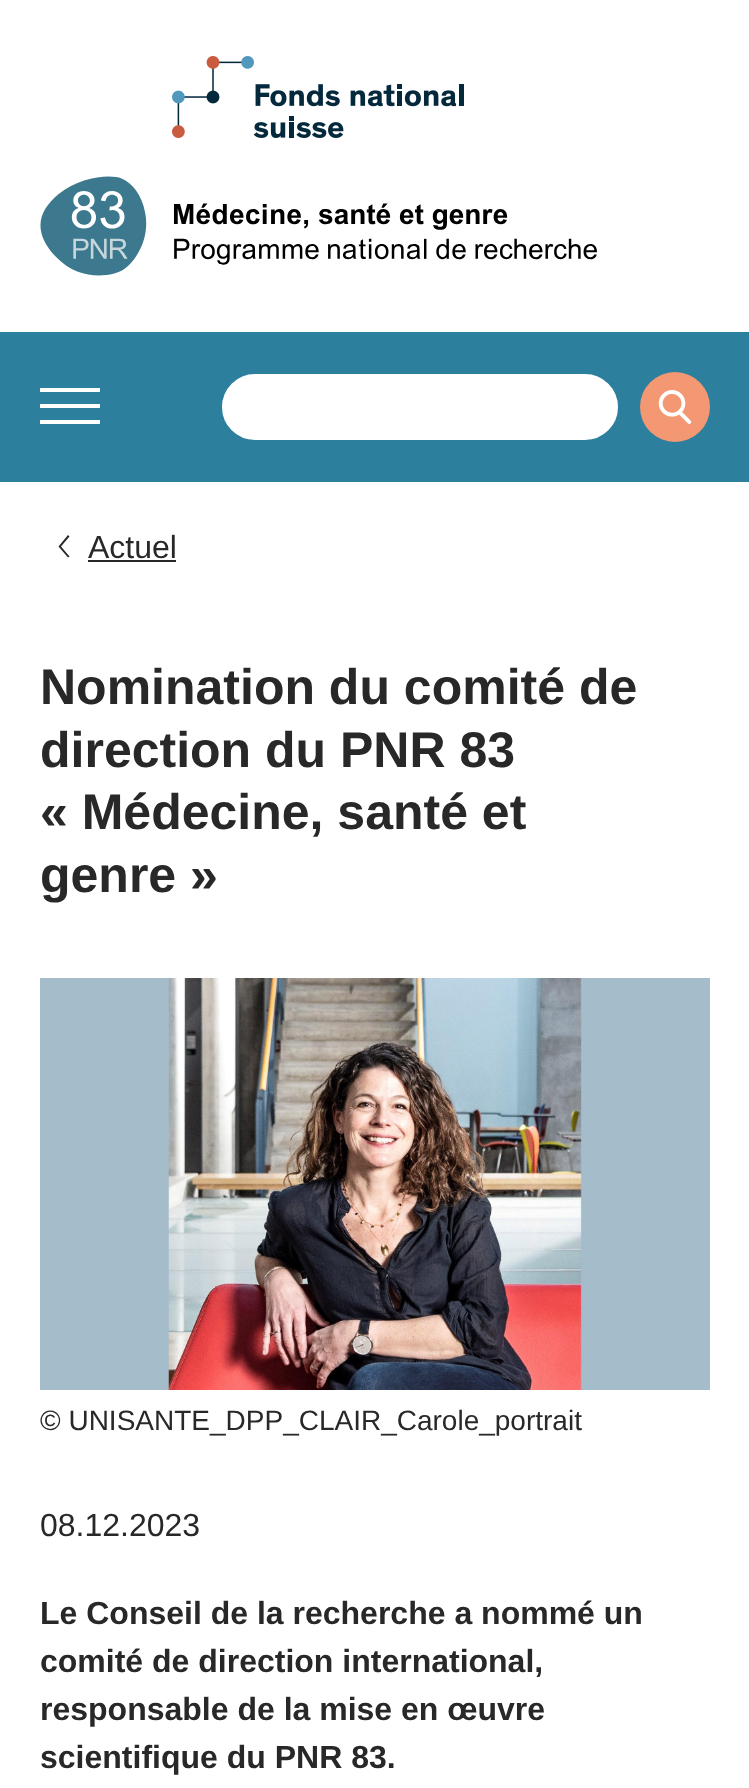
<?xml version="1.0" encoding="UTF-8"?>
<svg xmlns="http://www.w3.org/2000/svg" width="749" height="1788">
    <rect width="100%" height="100%" fill="#FFFFFF"/>
    <image x="172" y="56" width="292" height="82" href="img_01.png"/>
    <image x="40" y="176" width="557" height="100" href="img_02.png"/>
    <rect x="0" y="332" width="749" height="150" fill="#2C7F9D"/>
    <rect x="40" y="404" width="60" height="4" fill="#FFFFFF"/>
    <rect x="40" y="388" width="60" height="4" fill="#FFFFFF"/>
    <rect x="40" y="420" width="60" height="4" fill="#FFFFFF"/>
    <rect x="221" y="373" width="398" height="68" rx="34" fill="#FFFFFF" stroke="#2C7F9D" stroke-width="2"/>
    <circle cx="675" cy="407" r="35" fill="#F39872"/>
    <image x="658" y="390" width="34" height="34" href="img_03.png"/>
    <path d="M 68 535 L 69.5 536.5 L 61 546.5 L 69.5 556.5 L 68 557.5 L 58.5 546.5 Z" fill="#282828"/>
    <text x="88" y="558" font-family="Liberation Sans" font-size="32" fill="#282828">Actuel</text>
    <rect x="88" y="560" width="88" height="2" fill="#282828"/>
    <text font-family="Liberation Sans" font-size="50" font-weight="700" fill="#282828">
        <tspan x="40" y="704">Nomination du comité de</tspan>
        <tspan x="40" y="767">direction du PNR 83</tspan>
        <tspan x="40" y="829">« Médecine, santé et</tspan>
        <tspan x="40" y="892">genre »</tspan>
    </text>
    <image x="40" y="978" width="670" height="412" href="img_04.png"/>
    <text x="40" y="1430" font-family="Liberation Sans" font-size="28" fill="#282828">© UNISANTE_DPP_CLAIR_Carole_portrait</text>
    <text x="40" y="1536" font-family="Liberation Sans" font-size="32" fill="#282828">08.12.2023</text>
    <text font-family="Liberation Sans" font-size="32" font-weight="700" fill="#282828">
        <tspan x="40" y="1624">Le Conseil de la recherche a nommé un</tspan>
        <tspan x="40" y="1672">comité de direction international,</tspan>
        <tspan x="40" y="1720">responsable de la mise en œuvre</tspan>
        <tspan x="40" y="1768">scientifique du PNR 83.</tspan>
    </text>
</svg>
